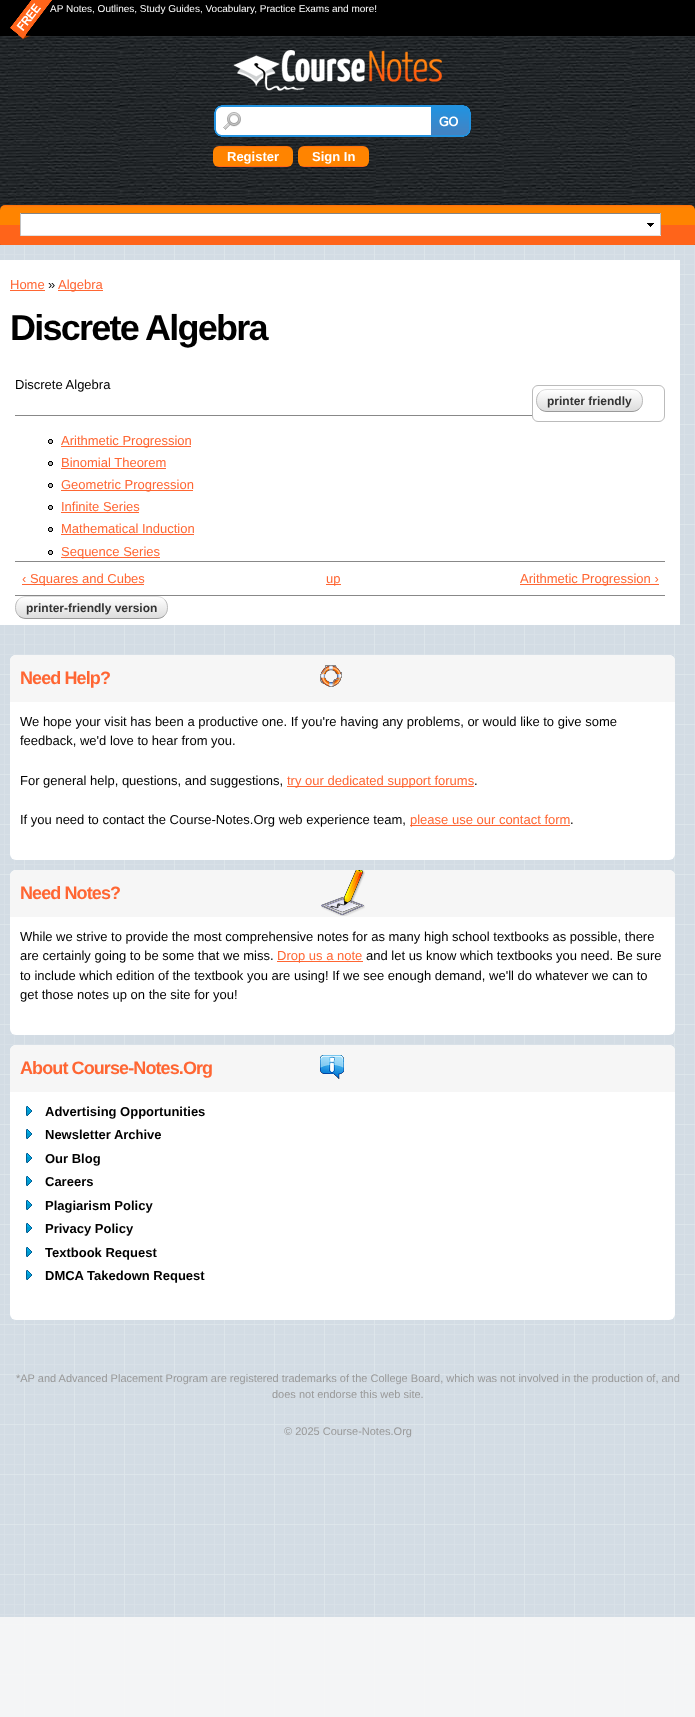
<?xml version="1.0" encoding="UTF-8"?>
<svg xmlns="http://www.w3.org/2000/svg" width="695" height="1717">
    <defs>
        <clipPath id="clip1"><rect x="536" y="389" width="107" height="23" rx="11"/></clipPath>
        <linearGradient id="g1" gradientUnits="userSpaceOnUse" x1="537" y1="390" x2="537" y2="411"><stop offset="0" stop-color="#FFFFFF"/><stop offset="1" stop-color="#DDDDDD"/></linearGradient>
        <clipPath id="clip2"><rect x="15" y="596" width="153" height="23" rx="11"/></clipPath>
        <linearGradient id="g2" gradientUnits="userSpaceOnUse" x1="16" y1="597" x2="16" y2="618"><stop offset="0" stop-color="#FFFFFF"/><stop offset="1" stop-color="#DDDDDD"/></linearGradient>
    </defs>
    <rect width="100%" height="100%" fill="#FFFFFF"/>
    <image x="0" y="245" width="695" height="1472" href="img_01.png"/>
    <image x="0" y="36" width="695" height="209" href="img_02.png"/>
    <rect x="0" y="0" width="695" height="36" fill="#000000"/>
    <image x="10" y="0" width="42" height="40" href="img_03.png"/>
    <text x="50" y="12" font-family="Liberation Sans" font-size="10" fill="#FFFFFF">AP Notes, Outlines, Study Guides, Vocabulary, Practice Exams and more!</text>
    <image x="233" y="50" width="209" height="41" href="img_04.png"/>
    <image x="214" y="105" width="217" height="32" href="img_05.png"/>
    <image x="431" y="105" width="40" height="32" href="img_06.png"/>
    <image x="213" y="146" width="80" height="21" href="img_07.png"/>
    <text x="227" y="161" font-family="Liberation Sans" font-size="13" font-weight="700" fill="#FFFFFF">Register</text>
    <image x="298" y="146" width="71" height="21" href="img_08.png"/>
    <text x="312" y="161" font-family="Liberation Sans" font-size="13" font-weight="700" fill="#FFFFFF">Sign In</text>
    <image x="0" y="205" width="695" height="40" href="img_09.png"/>
    <rect x="21" y="214" width="639" height="21" fill="#FFFFFF"/>
    <image x="647" y="223" width="7" height="4" href="img_10.png"/>
    <rect x="20" y="213" width="641" height="1" fill="#848484"/>
    <rect x="660" y="213" width="1" height="23" fill="#C1C1C1"/>
    <rect x="20" y="235" width="641" height="1" fill="#E1E1E1"/>
    <rect x="20" y="213" width="1" height="23" fill="#C1C1C1"/>
    <rect x="0" y="260" width="680" height="365" fill="#FFFFFF"/>
    <text x="10" y="289" font-family="Liberation Sans" font-size="13" fill="#FF6633">Home</text>
    <rect x="10" y="290" width="35" height="1" fill="#FF6633"/>
    <text x="48" y="289" font-family="Liberation Sans" font-size="13" fill="#000000">»</text>
    <rect x="58" y="290" width="45" height="1" fill="#FF6633"/>
    <text x="58" y="289" font-family="Liberation Sans" font-size="13" fill="#FF6633">Algebra</text>
    <text x="10" y="340" font-family="Liberation Sans" font-size="36" font-weight="700" letter-spacing="-1.75" fill="#000000">Discrete Algebra</text>
    <text x="15" y="389" font-family="Liberation Sans" font-size="13" fill="#000000">Discrete Algebra</text>
    <rect x="532.5" y="385.5" width="132" height="36" rx="5.5" fill="none" stroke="#BBBBBB"/>
    <g clip-path="url(#clip1)">
        <rect x="536" y="390" width="107" height="21" fill="url(#g1)"/>
    </g>
    <path d="M 539.5 392.5 C 541.5 390.5 544 389.5 547 389.5 H 632 C 635 389.5 637.5 390.5 639.5 392.5" fill="none" stroke="#DDDDDD"/>
    <path d="M 639.5 392.5 C 643.5 396.5 643.5 404.5 639.5 408.5" fill="none" stroke="#BBBBBB"/>
    <path d="M 639.5 408.5 C 637.5 410.5 635 411.5 632 411.5 H 547 C 544 411.5 541.5 410.5 539.5 408.5" fill="none" stroke="#999999"/>
    <path d="M 539.5 408.5 C 535.5 404.5 535.5 396.5 539.5 392.5" fill="none" stroke="#BBBBBB"/>
    <text x="547" y="405" font-family="Liberation Sans" font-size="12" font-weight="700" fill="#333333">printer friendly</text>
    <rect x="15" y="415" width="517" height="1" fill="#888888"/>
    <image x="48" y="439" width="5" height="5" href="img_11.png"/>
    <rect x="61" y="446" width="130" height="1" fill="#FF6633"/>
    <text x="61" y="445" font-family="Liberation Sans" font-size="13" fill="#FF6633">Arithmetic Progression</text>
    <image x="48" y="461" width="5" height="5" href="img_11.png"/>
    <text x="61" y="467" font-family="Liberation Sans" font-size="13" fill="#FF6633">Binomial Theorem</text>
    <rect x="61" y="468" width="105" height="1" fill="#FF6633"/>
    <image x="48" y="483" width="5" height="5" href="img_11.png"/>
    <rect x="61" y="490" width="132" height="1" fill="#FF6633"/>
    <text x="61" y="489" font-family="Liberation Sans" font-size="13" fill="#FF6633">Geometric Progression</text>
    <image x="48" y="505" width="5" height="5" href="img_11.png"/>
    <text x="61" y="511" font-family="Liberation Sans" font-size="13" fill="#FF6633">Infinite Series</text>
    <rect x="61" y="512" width="78" height="1" fill="#FF6633"/>
    <image x="48" y="527" width="5" height="5" href="img_11.png"/>
    <text x="61" y="533" font-family="Liberation Sans" font-size="13" fill="#FF6633">Mathematical Induction</text>
    <rect x="61" y="534" width="133" height="1" fill="#FF6633"/>
    <image x="48" y="550" width="5" height="5" href="img_11.png"/>
    <rect x="61" y="557" width="99" height="1" fill="#FF6633"/>
    <text x="61" y="556" font-family="Liberation Sans" font-size="13" fill="#FF6633">Sequence Series</text>
    <rect x="15" y="561" width="650" height="1" fill="#888888"/>
    <rect x="15" y="595" width="650" height="1" fill="#888888"/>
    <rect x="22" y="584" width="122" height="1" fill="#FF6633"/>
    <text x="22" y="583" font-family="Liberation Sans" font-size="13" fill="#FF6633">‹ Squares and Cubes</text>
    <rect x="326" y="584" width="15" height="1" fill="#FF6633"/>
    <text x="326" y="583" font-family="Liberation Sans" font-size="13" fill="#FF6633">up</text>
    <rect x="520" y="584" width="139" height="1" fill="#FF6633"/>
    <text x="520" y="583" font-family="Liberation Sans" font-size="13" fill="#FF6633">Arithmetic Progression ›</text>
    <g clip-path="url(#clip2)">
        <rect x="15" y="597" width="153" height="21" fill="url(#g2)"/>
    </g>
    <path d="M 18.5 599.5 C 20.5 597.5 23 596.5 26 596.5 H 157 C 160 596.5 162.5 597.5 164.5 599.5" fill="none" stroke="#DDDDDD"/>
    <path d="M 164.5 599.5 C 168.5 603.5 168.5 611.5 164.5 615.5" fill="none" stroke="#BBBBBB"/>
    <path d="M 164.5 615.5 C 162.5 617.5 160 618.5 157 618.5 H 26 C 23 618.5 20.5 617.5 18.5 615.5" fill="none" stroke="#999999"/>
    <path d="M 18.5 615.5 C 14.5 611.5 14.5 603.5 18.5 599.5" fill="none" stroke="#BBBBBB"/>
    <text x="26" y="612" font-family="Liberation Sans" font-size="12" font-weight="700" fill="#333333">printer-friendly version</text>
    <rect x="10" y="655" width="665" height="205" rx="6" fill="#FFFFFF"/>
    <path d="M 16 655 H 669 C 672.5 655 675 657.5 675 661 V 702 H 10 V 661 C 10 657.5 12.5 655 16 655 Z" fill="#F6F6F6"/>
    <image x="320" y="665" width="22" height="22" href="img_12.png"/>
    <text x="20" y="684" font-family="Liberation Sans" font-size="18" font-weight="700" letter-spacing="-0.9" fill="#FF6633">Need Help?</text>
    <text font-family="Liberation Sans" font-size="13" fill="#000000">
        <tspan x="20" y="726">We hope your visit has been a productive one. If you're having any problems, or would like to give some</tspan>
        <tspan x="20" y="745">feedback, we'd love to hear from you.</tspan>
    </text>
    <text x="20" y="785" font-family="Liberation Sans" font-size="13" fill="#000000">For general help, questions, and suggestions,</text>
    <rect x="287" y="786" width="187" height="1" fill="#FF6633"/>
    <text x="287" y="785" font-family="Liberation Sans" font-size="13" fill="#FF6633">try our dedicated support forums</text>
    <text x="474" y="785" font-family="Liberation Sans" font-size="13" fill="#000000">.</text>
    <text x="20" y="824" font-family="Liberation Sans" font-size="13" fill="#000000">If you need to contact the Course-Notes.Org web experience team,</text>
    <rect x="410" y="825" width="160" height="1" fill="#FF6633"/>
    <text x="410" y="824" font-family="Liberation Sans" font-size="13" fill="#FF6633">please use our contact form</text>
    <text x="570" y="824" font-family="Liberation Sans" font-size="13" fill="#000000">.</text>
    <rect x="10" y="870" width="665" height="165" rx="6" fill="#FFFFFF"/>
    <path d="M 16 870 H 669 C 672.5 870 675 872.5 675 876 V 917 H 10 V 876 C 10 872.5 12.5 870 16 870 Z" fill="#F6F6F6"/>
    <image x="321" y="870" width="44" height="46" href="img_13.png"/>
    <text x="20" y="899" font-family="Liberation Sans" font-size="18" font-weight="700" letter-spacing="-0.9" fill="#FF6633">Need Notes?</text>
    <text font-family="Liberation Sans" font-size="13" fill="#000000">
        <tspan x="20" y="941">While we strive to provide the most comprehensive notes for as many high school textbooks as possible, there</tspan>
        <tspan x="20" y="960">are certainly going to be some that we miss.</tspan>
    </text>
    <rect x="277" y="961" width="86" height="1" fill="#FF6633"/>
    <text x="277" y="960" font-family="Liberation Sans" font-size="13" fill="#FF6633">Drop us a note</text>
    <text x="366" y="960" font-family="Liberation Sans" font-size="13" fill="#000000">and let us know which textbooks you need. Be sure</text>
    <text font-family="Liberation Sans" font-size="13" fill="#000000">
        <tspan x="20" y="980">to include which edition of the textbook you are using! If we see enough demand, we'll do whatever we can to</tspan>
        <tspan x="20" y="999">get those notes up on the site for you!</tspan>
    </text>
    <rect x="10" y="1045" width="665" height="275" rx="6" fill="#FFFFFF"/>
    <path d="M 16 1045 H 669 C 672.5 1045 675 1047.5 675 1051 V 1092 H 10 V 1051 C 10 1047.5 12.5 1045 16 1045 Z" fill="#F6F6F6"/>
    <image x="320" y="1055" width="24" height="24" href="img_14.png"/>
    <text x="20" y="1074" font-family="Liberation Sans" font-size="18" font-weight="700" letter-spacing="-0.9" fill="#FF6633">About Course-Notes.Org</text>
    <image x="26" y="1106" width="6" height="10" href="img_15.png"/>
    <text x="45" y="1116" font-family="Liberation Sans" font-size="13" font-weight="700" fill="#000000">Advertising Opportunities</text>
    <image x="26" y="1129" width="6" height="10" href="img_15.png"/>
    <text x="45" y="1139" font-family="Liberation Sans" font-size="13" font-weight="700" fill="#000000">Newsletter Archive</text>
    <image x="26" y="1153" width="6" height="10" href="img_15.png"/>
    <text x="45" y="1163" font-family="Liberation Sans" font-size="13" font-weight="700" fill="#000000">Our Blog</text>
    <image x="26" y="1176" width="6" height="10" href="img_15.png"/>
    <text x="45" y="1186" font-family="Liberation Sans" font-size="13" font-weight="700" fill="#000000">Careers</text>
    <image x="26" y="1200" width="6" height="10" href="img_15.png"/>
    <text x="45" y="1210" font-family="Liberation Sans" font-size="13" font-weight="700" fill="#000000">Plagiarism Policy</text>
    <image x="26" y="1223" width="6" height="10" href="img_15.png"/>
    <text x="45" y="1233" font-family="Liberation Sans" font-size="13" font-weight="700" fill="#000000">Privacy Policy</text>
    <image x="26" y="1247" width="6" height="10" href="img_15.png"/>
    <text x="45" y="1257" font-family="Liberation Sans" font-size="13" font-weight="700" fill="#000000">Textbook Request</text>
    <image x="26" y="1270" width="6" height="10" href="img_15.png"/>
    <text x="45" y="1280" font-family="Liberation Sans" font-size="13" font-weight="700" fill="#000000">DMCA Takedown Request</text>
    <text x="16" y="1382" font-family="Liberation Sans" font-size="11" fill="#999999">*AP and Advanced Placement Program are registered trademarks of the College Board, which was not involved in the production of, and</text>
    <text x="272" y="1398" font-family="Liberation Sans" font-size="11" fill="#999999">does not endorse this web site.</text>
    <text x="284" y="1435" font-family="Liberation Sans" font-size="11" fill="#999999">© 2025 Course-Notes.Org</text>
    <rect x="0" y="1617" width="695" height="100" fill="#F7F7F7" fill-opacity="0.9"/>
</svg>
